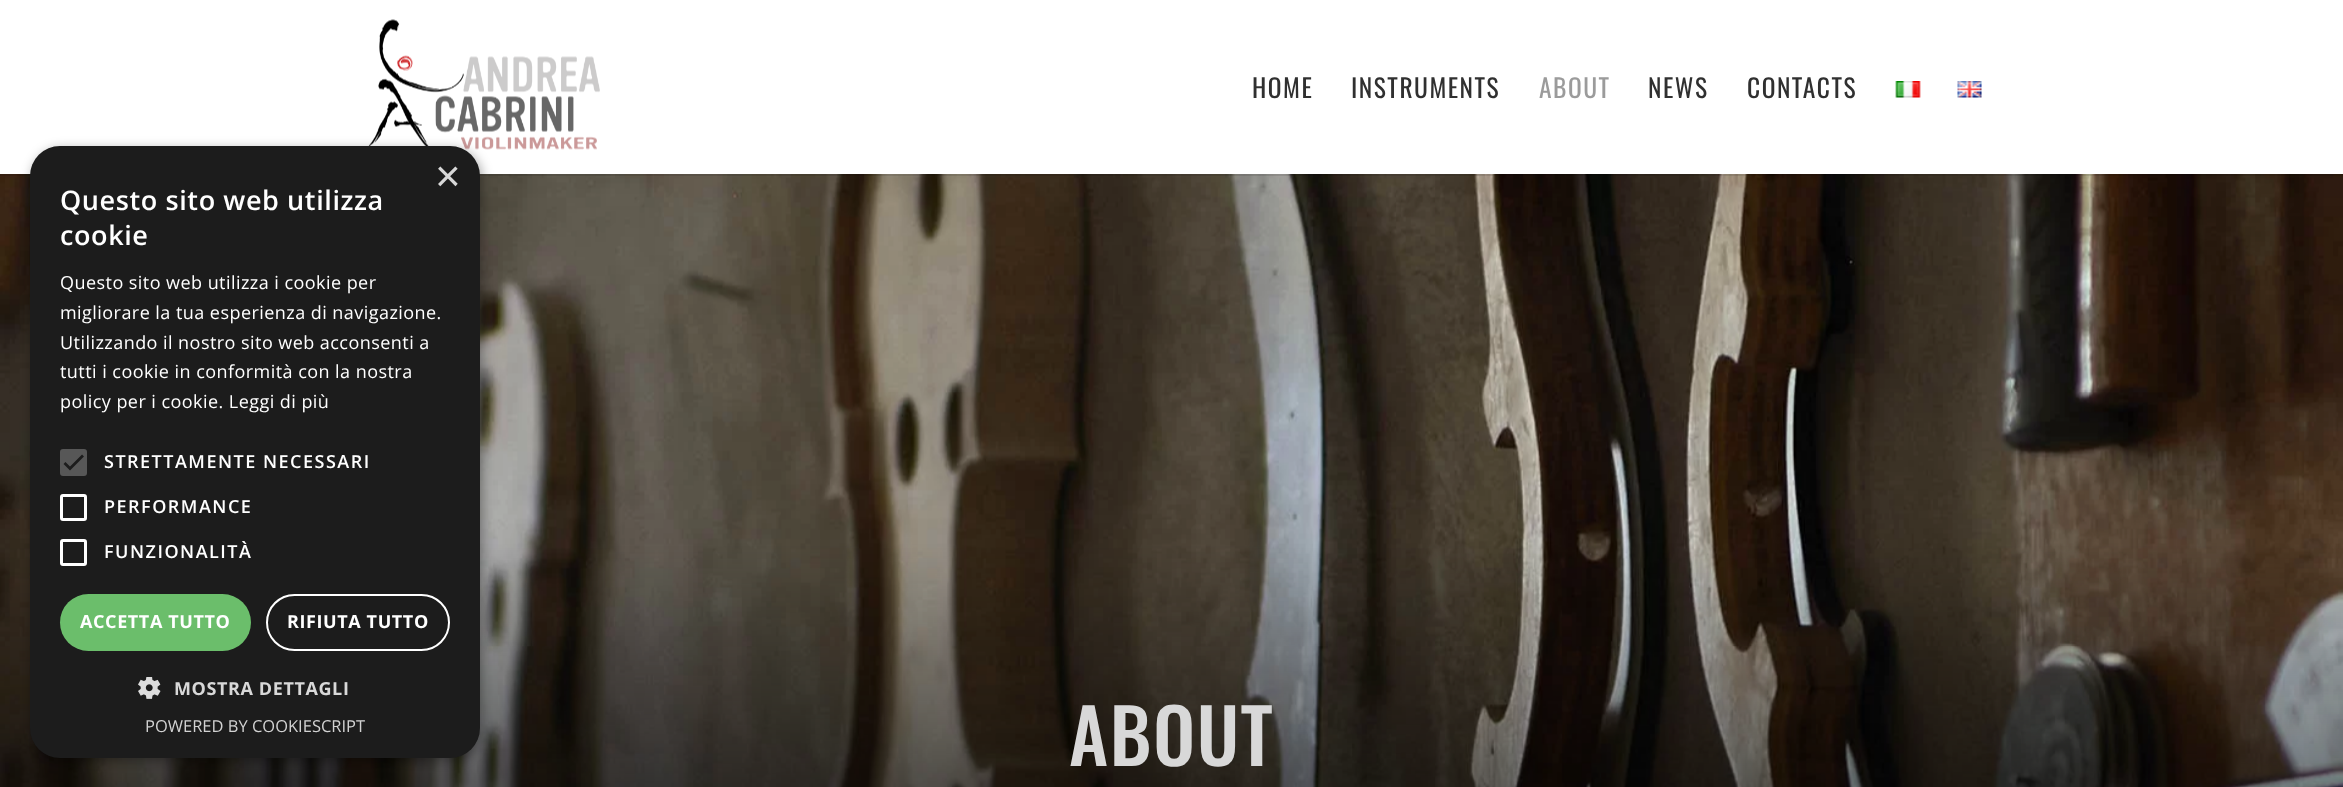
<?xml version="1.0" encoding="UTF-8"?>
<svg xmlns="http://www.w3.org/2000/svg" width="2343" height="787">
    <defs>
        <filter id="blur1" x="-50%" y="-200%" width="200%" height="500%"><feGaussianBlur stdDeviation="6"/></filter>
    </defs>
    <rect width="100%" height="100%" fill="#FFFFFF"/>
    <image x="0" y="174" width="2343" height="613" href="img_05.png"/>
    <rect x="0" y="174" width="2343" height="2" fill="#000000" fill-opacity="0.1"/>
    <image x="368" y="19" width="232" height="131" href="img_02.png"/>
    <rect x="32" y="149" width="450" height="612" rx="30" fill="#000000" fill-opacity="0.35" filter="url(#blur1)"/>
    <rect x="30" y="146" width="450" height="612" rx="30" fill="#1C1C1C"/>
    <text x="435" y="191" font-family="Liberation Sans" font-size="44" fill="#D8D8D8">×</text>
    <text font-family="Open Sans" font-size="27" font-weight="600" letter-spacing="0.6" fill="#FFFFFF">
        <tspan x="60" y="210">Questo sito web utilizza</tspan>
        <tspan x="60" y="245">cookie</tspan>
    </text>
    <text font-family="Open Sans" font-size="18" letter-spacing="0.45" fill="#FFFFFF">
        <tspan x="60" y="289">Questo sito web utilizza i cookie per</tspan>
        <tspan x="60" y="319">migliorare la tua esperienza di navigazione.</tspan>
        <tspan x="60" y="349">Utilizzando il nostro sito web acconsenti a</tspan>
        <tspan x="60" y="378">tutti i cookie in conformità con la nostra</tspan>
        <tspan x="60" y="408">policy per i cookie. Leggi di più</tspan>
    </text>
    <rect x="60" y="449" width="27" height="27" rx="3" fill="#575757"/>
    <path d="M 64.5 463 L 70 468.5 L 83 455.5" fill="none" stroke="#1C1C1C" stroke-width="2.7"/>
    <text x="104" y="468" font-family="Open Sans" font-size="18" font-weight="600" letter-spacing="1.5" fill="#FFFFFF">STRETTAMENTE NECESSARI</text>
    <rect x="61.5" y="495.5" width="24" height="24" rx="1.5" fill="none" stroke="#FFFFFF" stroke-width="3"/>
    <text x="104" y="513" font-family="Open Sans" font-size="18" font-weight="600" letter-spacing="1.5" fill="#FFFFFF">PERFORMANCE</text>
    <rect x="61.5" y="540.5" width="24" height="24" rx="1.5" fill="none" stroke="#FFFFFF" stroke-width="3"/>
    <text x="104" y="558" font-family="Open Sans" font-size="18" font-weight="600" letter-spacing="1.5" fill="#FFFFFF">FUNZIONALITÀ</text>
    <rect x="60" y="594" width="191" height="57" rx="28.5" fill="#6BBE6B"/>
    <text x="80" y="628" font-family="Open Sans" font-size="18" font-weight="700" letter-spacing="0.6" fill="#FFFFFF">ACCETTA TUTTO</text>
    <rect x="267" y="595" width="182" height="55" rx="27.5" fill="none" stroke="#FFFFFF" stroke-width="2"/>
    <text x="287" y="628" font-family="Open Sans" font-size="18" font-weight="700" letter-spacing="0.6" fill="#FFFFFF">RIFIUTA TUTTO</text>
    <image x="138" y="677" width="23" height="22" href="img_01.png"/>
    <text x="174" y="695" font-family="Open Sans" font-size="18" font-weight="700" letter-spacing="0.6" fill="#D8D8D8">MOSTRA DETTAGLI</text>
    <text x="145" y="732" font-family="Open Sans" font-size="16.5" fill="#D2D2D2">POWERED BY COOKIESCRIPT</text>
    <text x="1252" y="98" font-family="Oswald" font-size="25.5" letter-spacing="1.5" fill="#303030">HOME</text>
    <text x="1351" y="98" font-family="Oswald" font-size="25.5" letter-spacing="1.5" fill="#303030">INSTRUMENTS</text>
    <text x="1539" y="98" font-family="Oswald" font-size="25.5" letter-spacing="1.5" fill="#9B9B9B">ABOUT</text>
    <text x="1648" y="98" font-family="Oswald" font-size="25.5" letter-spacing="1.5" fill="#303030">NEWS</text>
    <text x="1747" y="98" font-family="Oswald" font-size="25.5" letter-spacing="1.5" fill="#303030">CONTACTS</text>
    <image x="1895" y="81" width="26" height="17" href="img_03.png"/>
    <image x="1957" y="81" width="25" height="17" href="img_04.png"/>
    <text x="1069" y="766" font-family="Oswald" font-size="75" font-weight="500" letter-spacing="1.5" fill="#D8D8D8">ABOUT</text>
</svg>
